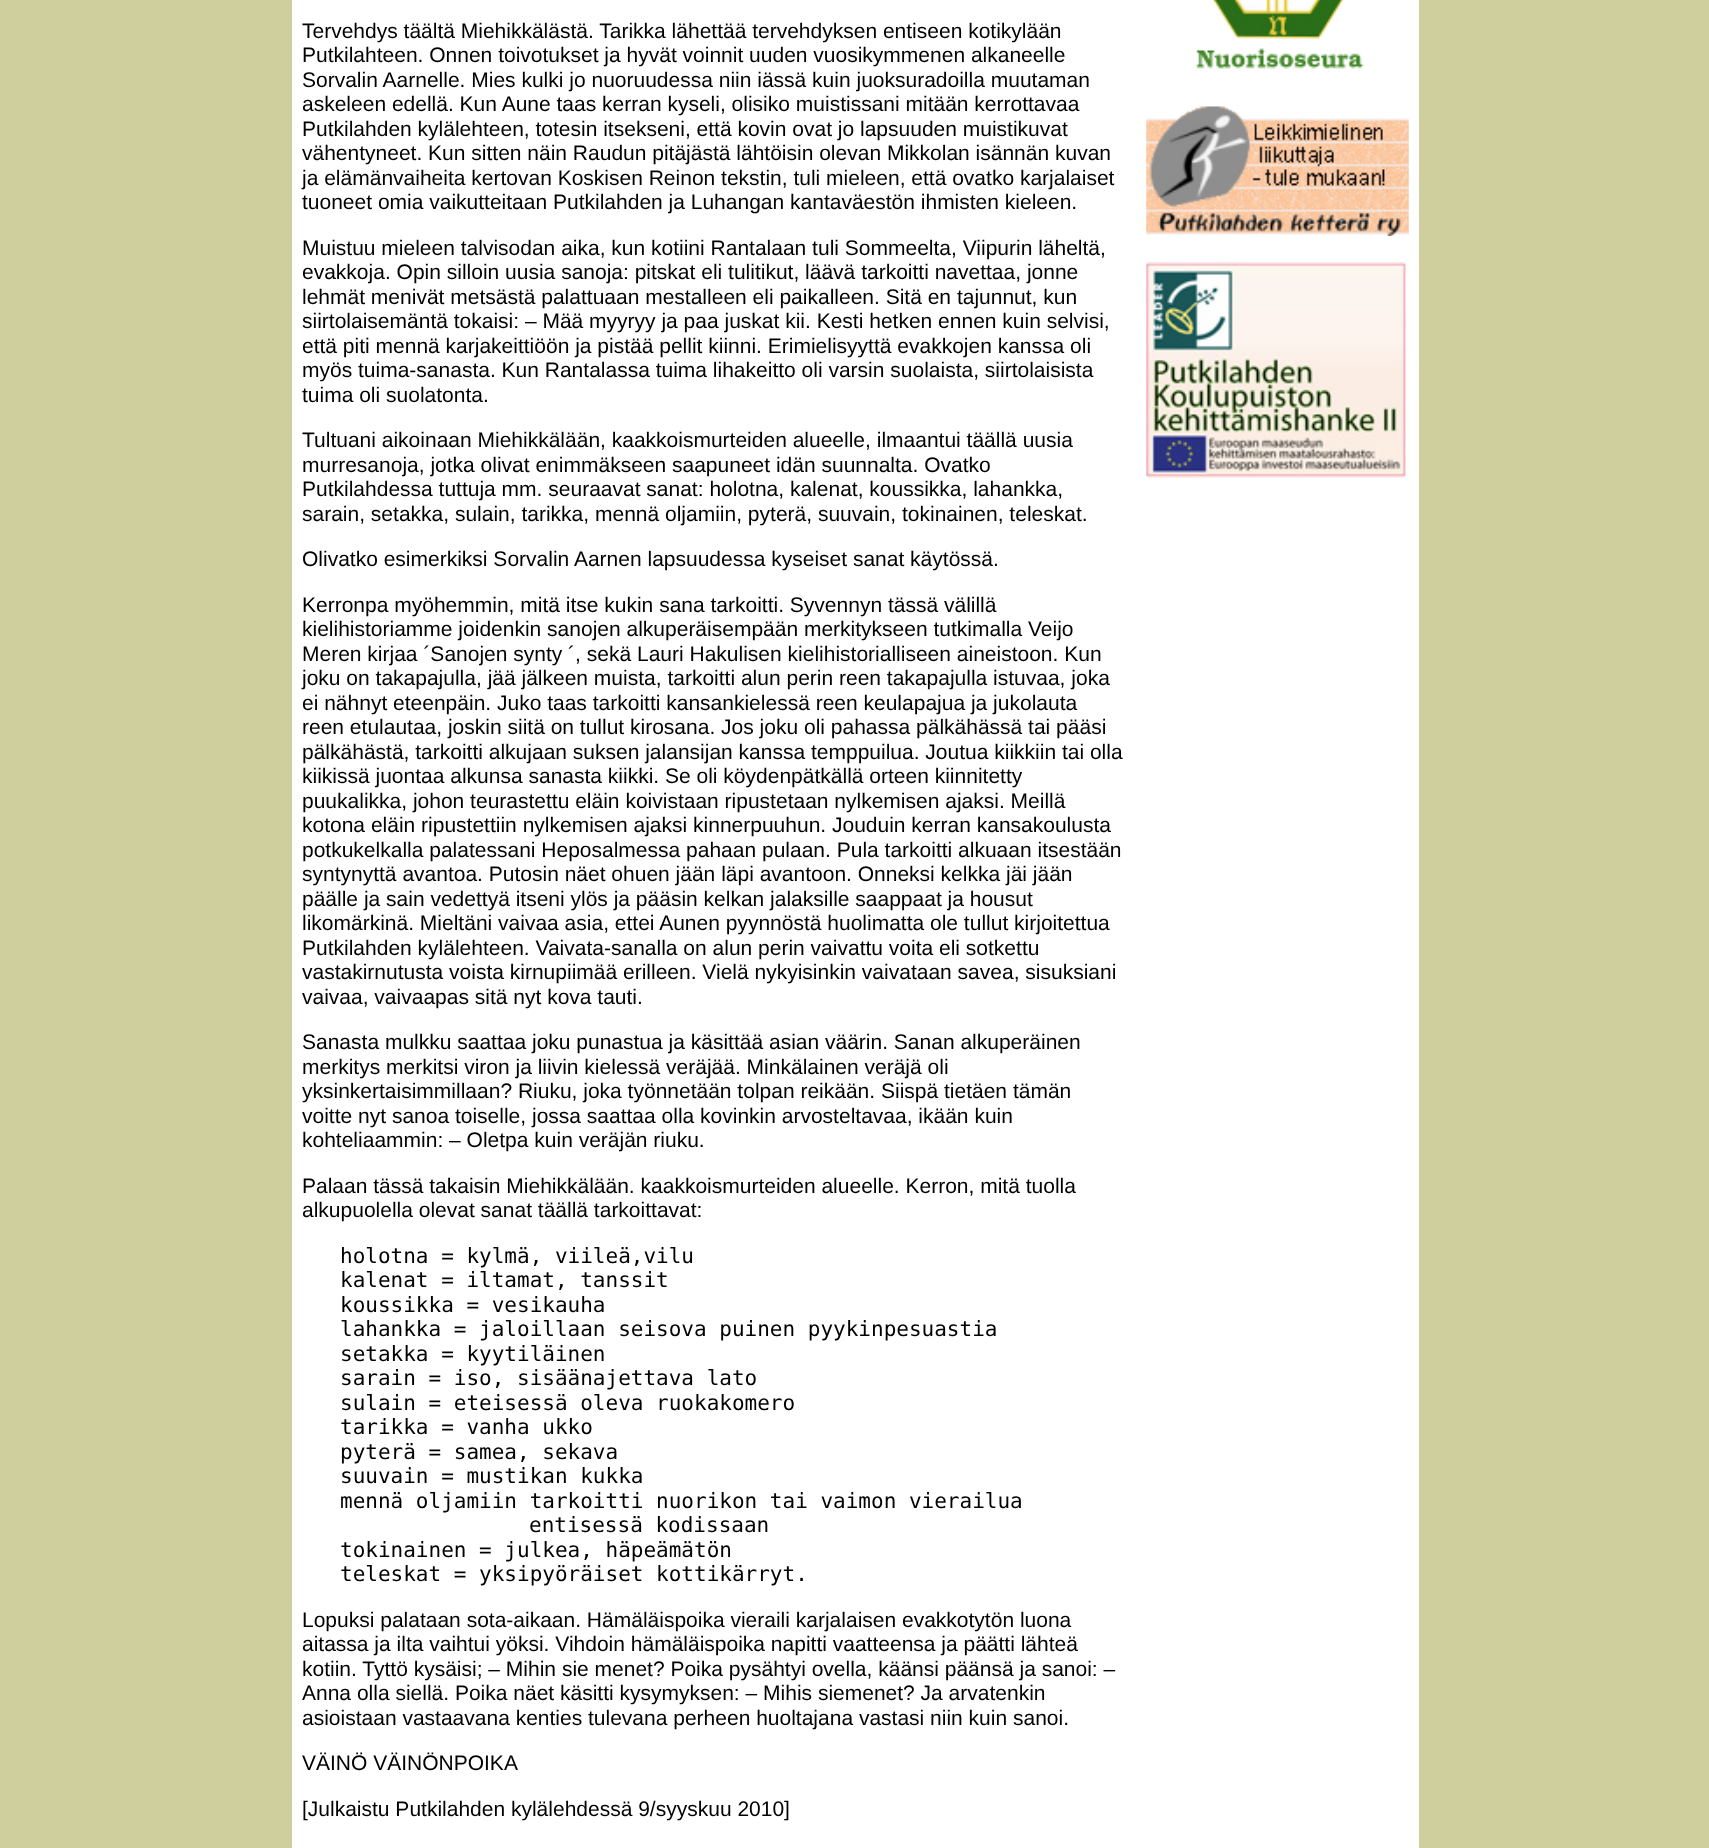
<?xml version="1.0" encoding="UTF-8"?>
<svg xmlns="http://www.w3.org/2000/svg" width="1709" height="1848">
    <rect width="100%" height="100%" fill="#CECF9C"/>
    <rect x="292" y="0" width="1127" height="1848" fill="#FFFFFF"/>
    <text font-family="Liberation Sans" font-size="21" fill="#000000">
        <tspan x="302" y="38">Tervehdys täältä Miehikkälästä. Tarikka lähettää tervehdyksen entiseen kotikylään</tspan>
        <tspan x="302" y="62">Putkilahteen. Onnen toivotukset ja hyvät voinnit uuden vuosikymmenen alkaneelle</tspan>
        <tspan x="302" y="87">Sorvalin Aarnelle. Mies kulki jo nuoruudessa niin iässä kuin juoksuradoilla muutaman</tspan>
        <tspan x="302" y="111">askeleen edellä. Kun Aune taas kerran kyseli, olisiko muistissani mitään kerrottavaa</tspan>
        <tspan x="302" y="136">Putkilahden kylälehteen, totesin itsekseni, että kovin ovat jo lapsuuden muistikuvat</tspan>
        <tspan x="302" y="160">vähentyneet. Kun sitten näin Raudun pitäjästä lähtöisin olevan Mikkolan isännän kuvan</tspan>
        <tspan x="302" y="185">ja elämänvaiheita kertovan Koskisen Reinon tekstin, tuli mieleen, että ovatko karjalaiset</tspan>
        <tspan x="302" y="209">tuoneet omia vaikutteitaan Putkilahden ja Luhangan kantaväestön ihmisten kieleen.</tspan>
    </text>
    <text font-family="Liberation Sans" font-size="21" fill="#000000">
        <tspan x="302" y="255">Muistuu mieleen talvisodan aika, kun kotiini Rantalaan tuli Sommeelta, Viipurin läheltä,</tspan>
        <tspan x="302" y="279">evakkoja. Opin silloin uusia sanoja: pitskat eli tulitikut, läävä tarkoitti navettaa, jonne</tspan>
        <tspan x="302" y="304">lehmät menivät metsästä palattuaan mestalleen eli paikalleen. Sitä en tajunnut, kun</tspan>
        <tspan x="302" y="328">siirtolaisemäntä tokaisi: – Mää myyryy ja paa juskat kii. Kesti hetken ennen kuin selvisi,</tspan>
        <tspan x="302" y="353">että piti mennä karjakeittiöön ja pistää pellit kiinni. Erimielisyyttä evakkojen kanssa oli</tspan>
        <tspan x="302" y="377">myös tuima-sanasta. Kun Rantalassa tuima lihakeitto oli varsin suolaista, siirtolaisista</tspan>
        <tspan x="302" y="402">tuima oli suolatonta.</tspan>
    </text>
    <text font-family="Liberation Sans" font-size="21" fill="#000000">
        <tspan x="302" y="447">Tultuani aikoinaan Miehikkälään, kaakkoismurteiden alueelle, ilmaantui täällä uusia</tspan>
        <tspan x="302" y="472">murresanoja, jotka olivat enimmäkseen saapuneet idän suunnalta. Ovatko</tspan>
        <tspan x="302" y="496">Putkilahdessa tuttuja mm. seuraavat sanat: holotna, kalenat, koussikka, lahankka,</tspan>
        <tspan x="302" y="521">sarain, setakka, sulain, tarikka, mennä oljamiin, pyterä, suuvain, tokinainen, teleskat.</tspan>
    </text>
    <text x="302" y="566" font-family="Liberation Sans" font-size="21" fill="#000000">Olivatko esimerkiksi Sorvalin Aarnen lapsuudessa kyseiset sanat käytössä.</text>
    <text font-family="Liberation Sans" font-size="21" fill="#000000">
        <tspan x="302" y="612">Kerronpa myöhemmin, mitä itse kukin sana tarkoitti. Syvennyn tässä välillä</tspan>
        <tspan x="302" y="636">kielihistoriamme joidenkin sanojen alkuperäisempään merkitykseen tutkimalla Veijo</tspan>
        <tspan x="302" y="661">Meren kirjaa ´Sanojen synty ´, sekä Lauri Hakulisen kielihistorialliseen aineistoon. Kun</tspan>
        <tspan x="302" y="685">joku on takapajulla, jää jälkeen muista, tarkoitti alun perin reen takapajulla istuvaa, joka</tspan>
        <tspan x="302" y="710">ei nähnyt eteenpäin. Juko taas tarkoitti kansankielessä reen keulapajua ja jukolauta</tspan>
        <tspan x="302" y="734">reen etulautaa, joskin siitä on tullut kirosana. Jos joku oli pahassa pälkähässä tai pääsi</tspan>
        <tspan x="302" y="759">pälkähästä, tarkoitti alkujaan suksen jalansijan kanssa temppuilua. Joutua kiikkiin tai olla</tspan>
        <tspan x="302" y="783">kiikissä juontaa alkunsa sanasta kiikki. Se oli köydenpätkällä orteen kiinnitetty</tspan>
        <tspan x="302" y="808">puukalikka, johon teurastettu eläin koivistaan ripustetaan nylkemisen ajaksi. Meillä</tspan>
        <tspan x="302" y="832">kotona eläin ripustettiin nylkemisen ajaksi kinnerpuuhun. Jouduin kerran kansakoulusta</tspan>
        <tspan x="302" y="857">potkukelkalla palatessani Heposalmessa pahaan pulaan. Pula tarkoitti alkuaan itsestään</tspan>
        <tspan x="302" y="881">syntynyttä avantoa. Putosin näet ohuen jään läpi avantoon. Onneksi kelkka jäi jään</tspan>
        <tspan x="302" y="906">päälle ja sain vedettyä itseni ylös ja pääsin kelkan jalaksille saappaat ja housut</tspan>
        <tspan x="302" y="930">likomärkinä. Mieltäni vaivaa asia, ettei Aunen pyynnöstä huolimatta ole tullut kirjoitettua</tspan>
        <tspan x="302" y="955">Putkilahden kylälehteen. Vaivata-sanalla on alun perin vaivattu voita eli sotkettu</tspan>
        <tspan x="302" y="979">vastakirnutusta voista kirnupiimää erilleen. Vielä nykyisinkin vaivataan savea, sisuksiani</tspan>
        <tspan x="302" y="1004">vaivaa, vaivaapas sitä nyt kova tauti.</tspan>
    </text>
    <text font-family="Liberation Sans" font-size="21" fill="#000000">
        <tspan x="302" y="1049">Sanasta mulkku saattaa joku punastua ja käsittää asian väärin. Sanan alkuperäinen</tspan>
        <tspan x="302" y="1074">merkitys merkitsi viron ja liivin kielessä veräjää. Minkälainen veräjä oli</tspan>
        <tspan x="302" y="1098">yksinkertaisimmillaan? Riuku, joka työnnetään tolpan reikään. Siispä tietäen tämän</tspan>
        <tspan x="302" y="1123">voitte nyt sanoa toiselle, jossa saattaa olla kovinkin arvosteltavaa, ikään kuin</tspan>
        <tspan x="302" y="1147">kohteliaammin: – Oletpa kuin veräjän riuku.</tspan>
    </text>
    <text font-family="Liberation Sans" font-size="21" fill="#000000">
        <tspan x="302" y="1193">Palaan tässä takaisin Miehikkälään. kaakkoismurteiden alueelle. Kerron, mitä tuolla</tspan>
        <tspan x="302" y="1217">alkupuolella olevat sanat täällä tarkoittavat:</tspan>
    </text>
    <text font-family="DejaVu Sans Mono" font-size="21" fill="#000000">
        <tspan x="340" y="1263">holotna = kylmä, viileä,vilu</tspan>
        <tspan x="340" y="1287">kalenat = iltamat, tanssit</tspan>
        <tspan x="340" y="1312">koussikka = vesikauha</tspan>
        <tspan x="340" y="1336">lahankka = jaloillaan seisova puinen pyykinpesuastia</tspan>
        <tspan x="340" y="1361">setakka = kyytiläinen</tspan>
        <tspan x="340" y="1385">sarain = iso, sisäänajettava lato</tspan>
        <tspan x="340" y="1410">sulain = eteisessä oleva ruokakomero</tspan>
        <tspan x="340" y="1434">tarikka = vanha ukko</tspan>
        <tspan x="340" y="1459">pyterä = samea, sekava</tspan>
        <tspan x="340" y="1483">suuvain = mustikan kukka</tspan>
        <tspan x="340" y="1508">mennä oljamiin tarkoitti nuorikon tai vaimon vierailua</tspan>
    </text>
    <text x="529" y="1532" font-family="DejaVu Sans Mono" font-size="21" fill="#000000">entisessä kodissaan</text>
    <text font-family="DejaVu Sans Mono" font-size="21" fill="#000000">
        <tspan x="340" y="1557">tokinainen = julkea, häpeämätön</tspan>
        <tspan x="340" y="1581">teleskat = yksipyöräiset kottikärryt.</tspan>
    </text>
    <text font-family="Liberation Sans" font-size="21" fill="#000000">
        <tspan x="302" y="1627">Lopuksi palataan sota-aikaan. Hämäläispoika vieraili karjalaisen evakkotytön luona</tspan>
        <tspan x="302" y="1651">aitassa ja ilta vaihtui yöksi. Vihdoin hämäläispoika napitti vaatteensa ja päätti lähteä</tspan>
        <tspan x="302" y="1676">kotiin. Tyttö kysäisi; – Mihin sie menet? Poika pysähtyi ovella, käänsi päänsä ja sanoi: –</tspan>
        <tspan x="302" y="1700">Anna olla siellä. Poika näet käsitti kysymyksen: – Mihis siemenet? Ja arvatenkin</tspan>
        <tspan x="302" y="1725">asioistaan vastaavana kenties tulevana perheen huoltajana vastasi niin kuin sanoi.</tspan>
    </text>
    <text x="302" y="1770" font-family="Liberation Sans" font-size="21" fill="#000000">VÄINÖ VÄINÖNPOIKA</text>
    <text x="302" y="1816" font-family="Liberation Sans" font-size="21" fill="#000000">[Julkaistu Putkilahden kylälehdessä 9/syyskuu 2010]</text>
    <image x="1196" y="0" width="168" height="69" href="img_01.png"/>
    <image x="1146" y="106" width="263" height="130" href="img_02.png"/>
    <image x="1146" y="260" width="263" height="218" href="img_03.png"/>
</svg>
